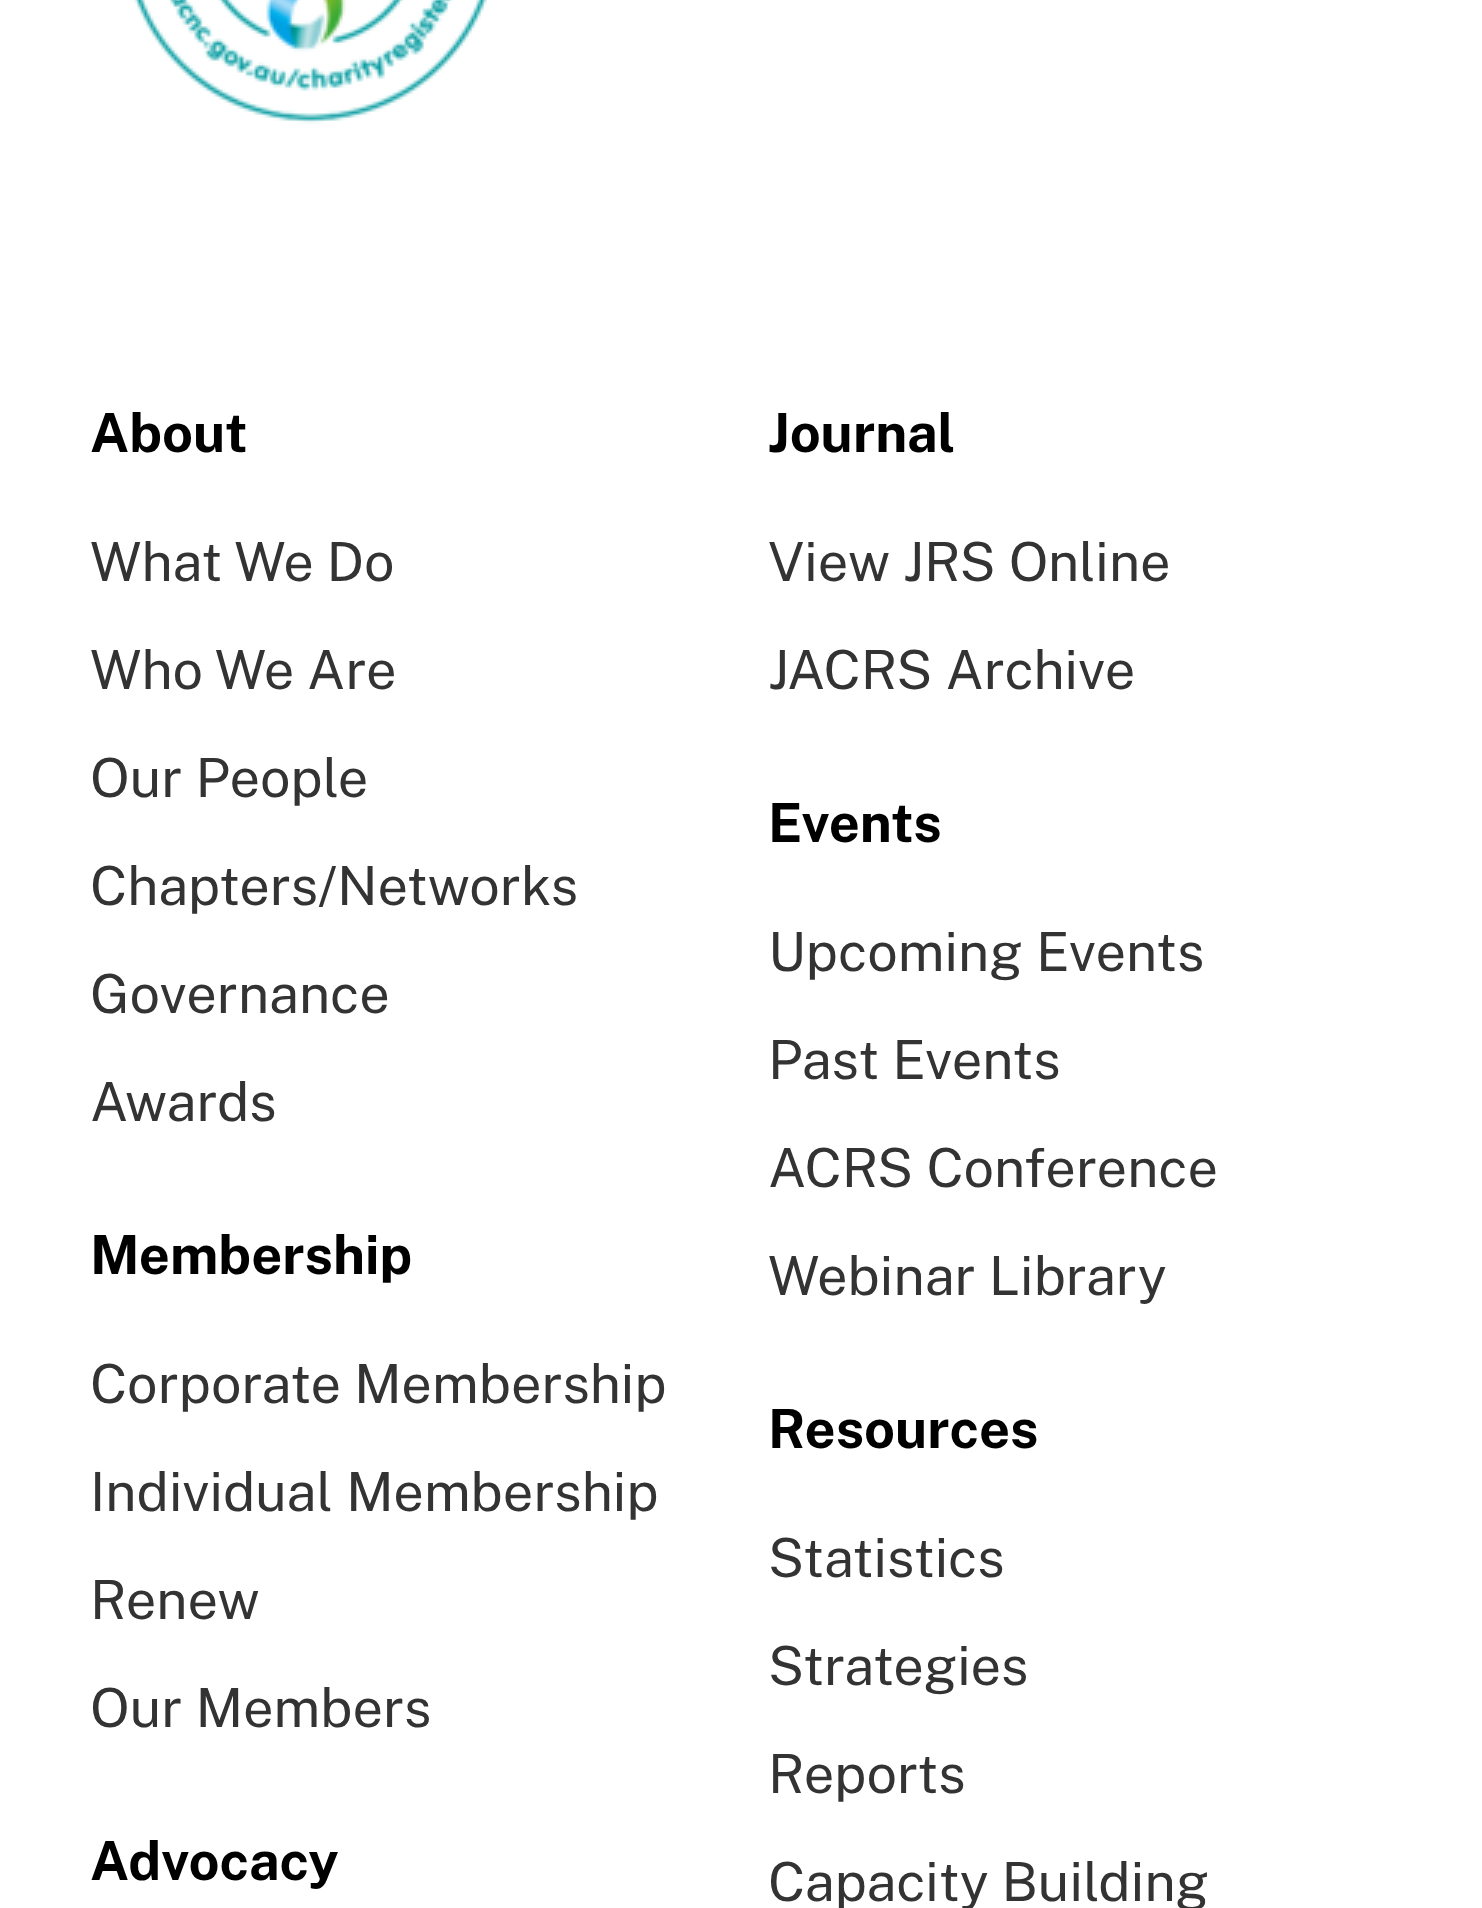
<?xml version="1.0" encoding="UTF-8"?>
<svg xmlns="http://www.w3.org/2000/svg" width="1482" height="1908">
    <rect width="100%" height="100%" fill="#FFFFFF"/>
    <image x="134" y="0" width="353" height="124" href="img_01.png"/>
    <text x="90" y="452" font-family="Public Sans" font-size="54" font-weight="700" fill="#000000">About</text>
    <text x="90" y="581" font-family="Public Sans" font-size="54" fill="#333333">What We Do</text>
    <text x="90" y="689" font-family="Public Sans" font-size="54" fill="#333333">Who We Are</text>
    <text x="90" y="797" font-family="Public Sans" font-size="54" fill="#333333">Our People</text>
    <text x="90" y="905" font-family="Public Sans" font-size="54" fill="#333333">Chapters/Networks</text>
    <text x="90" y="1013" font-family="Public Sans" font-size="54" fill="#333333">Governance</text>
    <text x="90" y="1121" font-family="Public Sans" font-size="54" fill="#333333">Awards</text>
    <text x="768" y="452" font-family="Public Sans" font-size="54" font-weight="700" fill="#000000">Journal</text>
    <text x="768" y="581" font-family="Public Sans" font-size="54" fill="#333333">View JRS Online</text>
    <text x="768" y="689" font-family="Public Sans" font-size="54" fill="#333333">JACRS Archive</text>
    <text x="768" y="842" font-family="Public Sans" font-size="54" font-weight="700" fill="#000000">Events</text>
    <text x="768" y="971" font-family="Public Sans" font-size="54" fill="#333333">Upcoming Events</text>
    <text x="768" y="1079" font-family="Public Sans" font-size="54" fill="#333333">Past Events</text>
    <text x="768" y="1187" font-family="Public Sans" font-size="54" fill="#333333">ACRS Conference</text>
    <text x="768" y="1295" font-family="Public Sans" font-size="54" fill="#333333">Webinar Library</text>
    <text x="90" y="1274" font-family="Public Sans" font-size="54" font-weight="700" fill="#000000">Membership</text>
    <text x="90" y="1403" font-family="Public Sans" font-size="54" fill="#333333">Corporate Membership</text>
    <text x="90" y="1511" font-family="Public Sans" font-size="54" fill="#333333">Individual Membership</text>
    <text x="90" y="1619" font-family="Public Sans" font-size="54" fill="#333333">Renew</text>
    <text x="90" y="1727" font-family="Public Sans" font-size="54" fill="#333333">Our Members</text>
    <text x="768" y="1448" font-family="Public Sans" font-size="54" font-weight="700" fill="#000000">Resources</text>
    <text x="768" y="1577" font-family="Public Sans" font-size="54" fill="#333333">Statistics</text>
    <text x="768" y="1685" font-family="Public Sans" font-size="54" fill="#333333">Strategies</text>
    <text x="768" y="1793" font-family="Public Sans" font-size="54" fill="#333333">Reports</text>
    <text x="768" y="1901" font-family="Public Sans" font-size="54" fill="#333333">Capacity Building</text>
    <text x="90" y="1880" font-family="Public Sans" font-size="54" font-weight="700" fill="#000000">Advocacy</text>
</svg>
